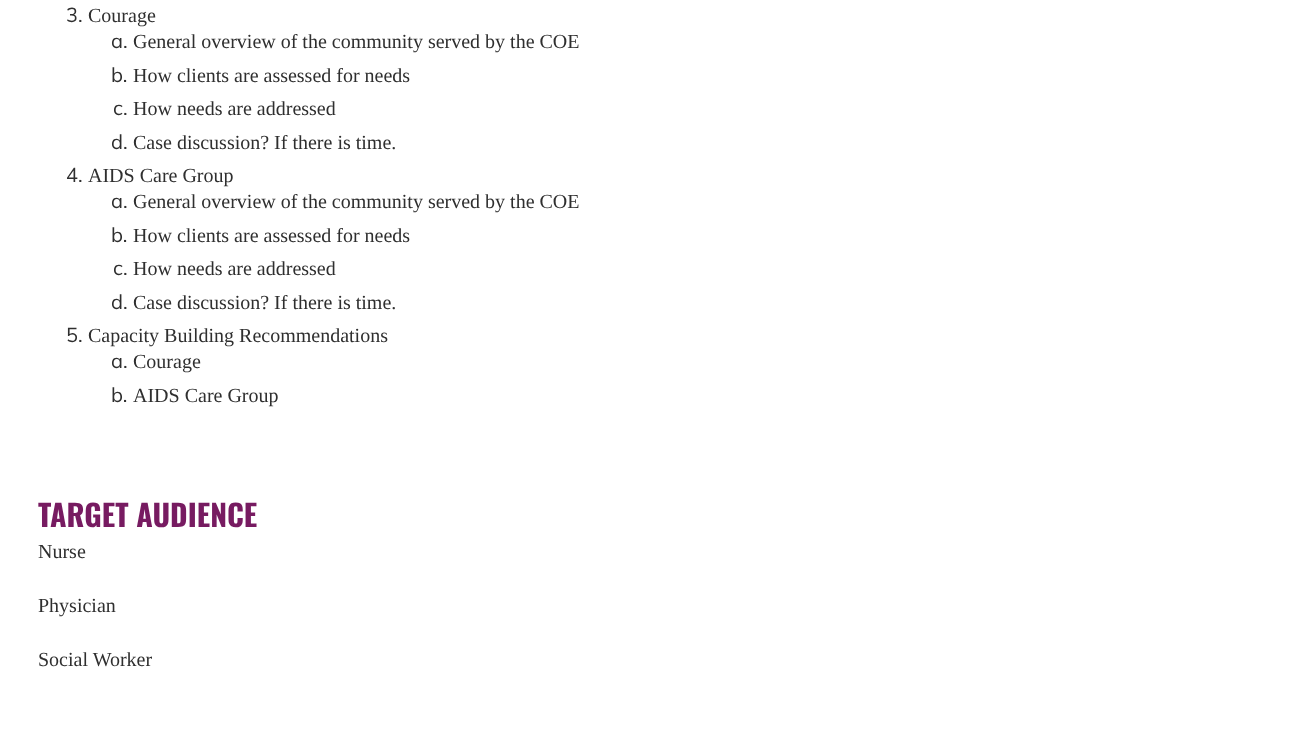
<?xml version="1.0" encoding="UTF-8"?>
<svg xmlns="http://www.w3.org/2000/svg" width="1298" height="747">
    <rect width="100%" height="100%" fill="#FFFFFF"/>
    <text x="66" y="22" font-family="Muli" font-size="20" fill="#2F2F2F">3.</text>
    <text x="88" y="22" font-family="Liberation Serif" font-size="20" fill="#2F2F2F">Courage</text>
    <text x="111" y="48" font-family="Muli" font-size="20" fill="#2F2F2F">a.</text>
    <text x="133" y="48" font-family="Liberation Serif" font-size="20" fill="#2F2F2F">General overview of the community served by the COE</text>
    <text x="111" y="82" font-family="Muli" font-size="20" fill="#2F2F2F">b.</text>
    <text x="133" y="82" font-family="Liberation Serif" font-size="20" fill="#2F2F2F">How clients are assessed for needs</text>
    <text x="113" y="115" font-family="Muli" font-size="20" fill="#2F2F2F">c.</text>
    <text x="133" y="115" font-family="Liberation Serif" font-size="20" fill="#2F2F2F">How needs are addressed</text>
    <text x="111" y="149" font-family="Muli" font-size="20" fill="#2F2F2F">d.</text>
    <text x="133" y="149" font-family="Liberation Serif" font-size="20" fill="#2F2F2F">Case discussion? If there is time.</text>
    <text x="66" y="182" font-family="Muli" font-size="20" fill="#2F2F2F">4.</text>
    <text x="88" y="182" font-family="Liberation Serif" font-size="20" fill="#2F2F2F">AIDS Care Group</text>
    <text x="111" y="208" font-family="Muli" font-size="20" fill="#2F2F2F">a.</text>
    <text x="133" y="208" font-family="Liberation Serif" font-size="20" fill="#2F2F2F">General overview of the community served by the COE</text>
    <text x="111" y="242" font-family="Muli" font-size="20" fill="#2F2F2F">b.</text>
    <text x="133" y="242" font-family="Liberation Serif" font-size="20" fill="#2F2F2F">How clients are assessed for needs</text>
    <text x="113" y="275" font-family="Muli" font-size="20" fill="#2F2F2F">c.</text>
    <text x="133" y="275" font-family="Liberation Serif" font-size="20" fill="#2F2F2F">How needs are addressed</text>
    <text x="111" y="309" font-family="Muli" font-size="20" fill="#2F2F2F">d.</text>
    <text x="133" y="309" font-family="Liberation Serif" font-size="20" fill="#2F2F2F">Case discussion? If there is time.</text>
    <text x="66" y="342" font-family="Muli" font-size="20" fill="#2F2F2F">5.</text>
    <text x="88" y="342" font-family="Liberation Serif" font-size="20" fill="#2F2F2F">Capacity Building Recommendations</text>
    <text x="111" y="368" font-family="Muli" font-size="20" fill="#2F2F2F">a.</text>
    <text x="133" y="368" font-family="Liberation Serif" font-size="20" fill="#2F2F2F">Courage</text>
    <text x="111" y="402" font-family="Muli" font-size="20" fill="#2F2F2F">b.</text>
    <text x="133" y="402" font-family="Liberation Serif" font-size="20" fill="#2F2F2F">AIDS Care Group</text>
    <text x="38" y="527" font-family="Oswald" font-size="30" font-weight="700" fill="#771B61">TARGET AUDIENCE</text>
    <text x="38" y="558" font-family="Liberation Serif" font-size="20" fill="#2F2F2F">Nurse</text>
    <text x="38" y="612" font-family="Liberation Serif" font-size="20" fill="#2F2F2F">Physician</text>
    <text x="38" y="666" font-family="Liberation Serif" font-size="20" fill="#2F2F2F">Social Worker</text>
</svg>
